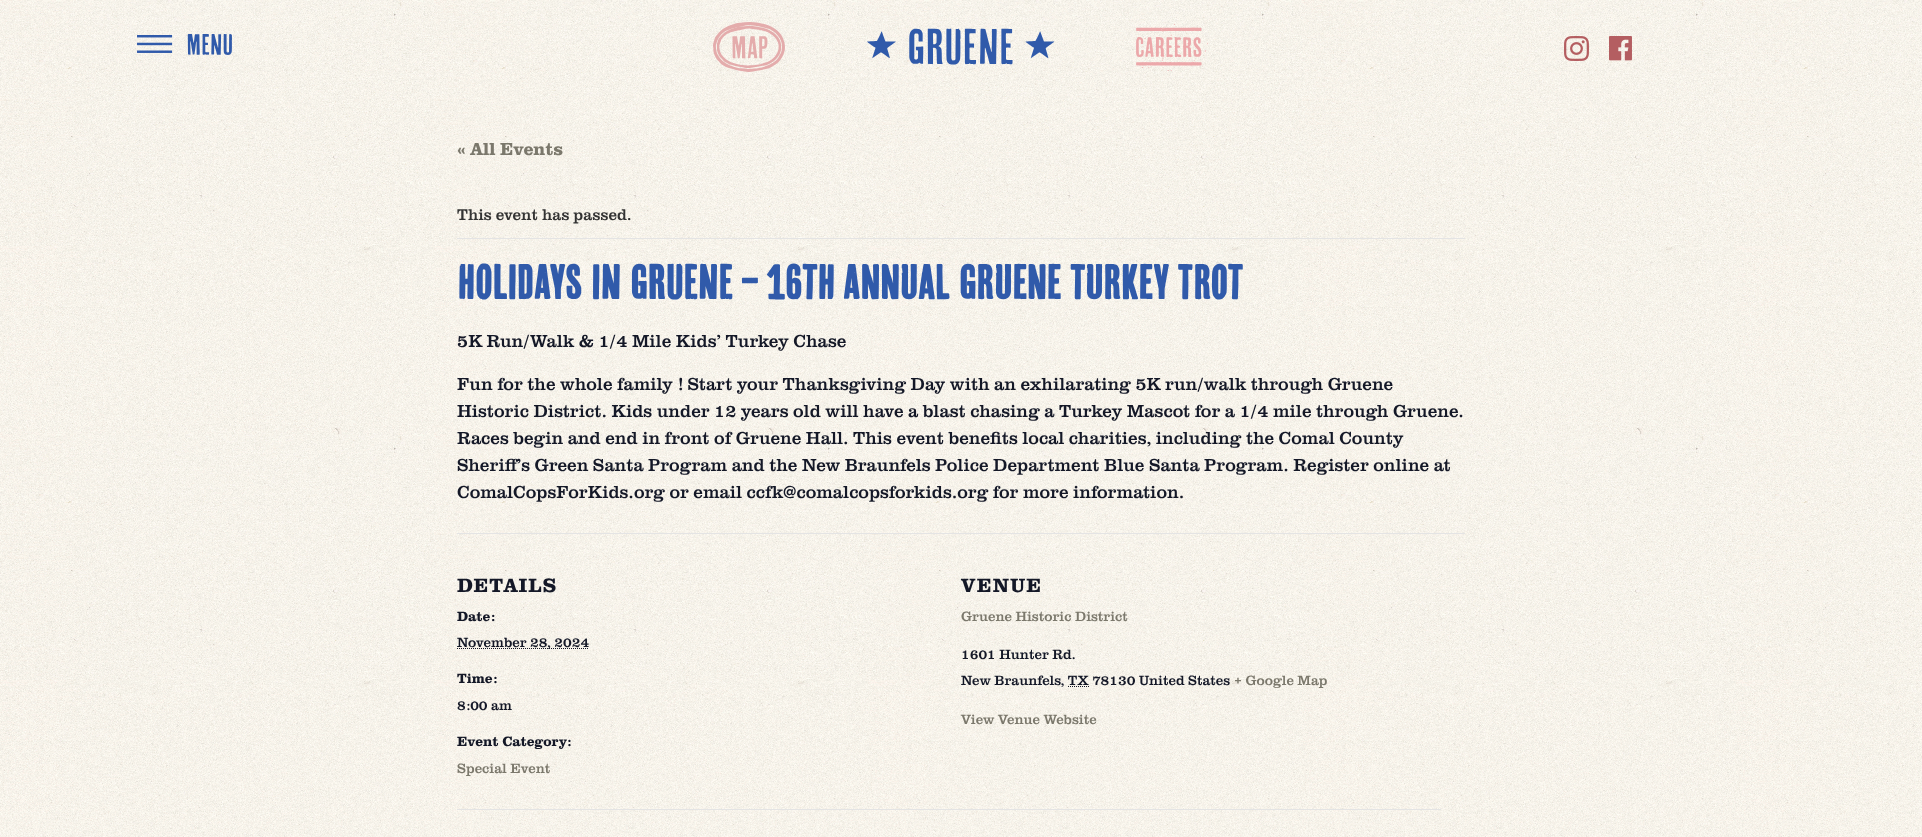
<?xml version="1.0" encoding="UTF-8"?>
<svg xmlns="http://www.w3.org/2000/svg" width="1922" height="837">
    <rect width="100%" height="100%" fill="#FFFFFF"/>
    <image x="0" y="0" width="1922" height="837" href="img_01.png"/>
    <image x="137" y="34" width="95" height="21" href="img_02.png"/>
    <image x="713" y="22" width="72" height="50" href="img_03.png"/>
    <text x="865" y="64" font-family="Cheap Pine" font-size="50" fill="#305AAA">** GRUENE **</text>
    <image x="1136" y="24" width="72" height="47" href="img_04.png"/>
    <image x="1564" y="36" width="25" height="25" href="img_05.png"/>
    <image x="1609" y="36" width="23" height="25" href="img_06.png"/>
    <text x="457" y="155" font-family="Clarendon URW" font-size="18" font-weight="700" fill="#7B786C">« All Events</text>
    <rect x="457" y="238" width="1008" height="1" fill="#E4E4E4"/>
    <text x="457" y="220" font-family="Clarendon URW" font-size="16" fill="#333333">This event has passed.</text>
    <text x="457" y="299" font-family="Cheap Pine" font-size="48" font-weight="700" fill="#305AAA">HOLIDAYS IN GRUENE – 16th Annual Gruene Turkey Trot</text>
    <text x="457" y="347" font-family="Clarendon URW" font-size="18" fill="#141827">5K Run/Walk &amp; 1/4 Mile Kids’ Turkey Chase</text>
    <text font-family="Clarendon URW" font-size="18" fill="#141827">
        <tspan x="457" y="390">Fun for the whole family ! Start your Thanksgiving Day with an exhilarating 5K run/walk through Gruene</tspan>
        <tspan x="457" y="417">Historic District. Kids under 12 years old will have a blast chasing a Turkey Mascot for a 1/4 mile through Gruene.</tspan>
        <tspan x="457" y="444">Races begin and end in front of Gruene Hall. This event benefits local charities, including the Comal County</tspan>
        <tspan x="457" y="471">Sheriff’s Green Santa Program and the New Braunfels Police Department Blue Santa Program. Register online at</tspan>
        <tspan x="457" y="498">ComalCopsForKids.org or email ccfk@comalcopsforkids.org for more information.</tspan>
    </text>
    <rect x="457" y="533" width="1008" height="1" fill="#E4E4E4"/>
    <text x="457" y="592" font-family="Clarendon URW" font-size="20" font-weight="700" letter-spacing="1" fill="#141827">DETAILS</text>
    <text x="457" y="621" font-family="Clarendon URW" font-size="14" font-weight="700" fill="#141827">Date:</text>
    <path d="M 457 648.5 H 589" fill="none" stroke="#141827" stroke-dasharray="1 1"/>
    <text x="457" y="647" font-family="Clarendon URW" font-size="14" fill="#141827">November 28, 2024</text>
    <text x="457" y="683" font-family="Clarendon URW" font-size="14" font-weight="700" fill="#141827">Time:</text>
    <text x="457" y="710" font-family="Clarendon URW" font-size="14" fill="#141827">8:00 am</text>
    <text x="457" y="746" font-family="Clarendon URW" font-size="14" font-weight="700" fill="#141827">Event Category:</text>
    <text x="457" y="773" font-family="Clarendon URW" font-size="14" fill="#7B786C">Special Event</text>
    <text x="961" y="592" font-family="Clarendon URW" font-size="20" font-weight="700" letter-spacing="1" fill="#141827">VENUE</text>
    <text x="961" y="621" font-family="Clarendon URW" font-size="14" fill="#7B786C">Gruene Historic District</text>
    <text font-family="Clarendon URW" font-size="14" fill="#141827">
        <tspan x="961" y="659">1601 Hunter Rd.</tspan>
        <tspan x="961" y="685">New Braunfels</tspan>
    </text>
    <text x="1061" y="685" font-family="Clarendon URW" font-size="14" fill="#141827">, TX 78130 United States</text>
    <path d="M 1068 686.5 H 1089" fill="none" stroke="#141827" stroke-dasharray="1 1"/>
    <text x="1234" y="685" font-family="Clarendon URW" font-size="14" fill="#7B786C">+ Google Map</text>
    <text x="961" y="724" font-family="Clarendon URW" font-size="14" fill="#7B786C">View Venue Website</text>
    <rect x="457" y="809" width="984" height="1" fill="#E4E4E4"/>
</svg>
